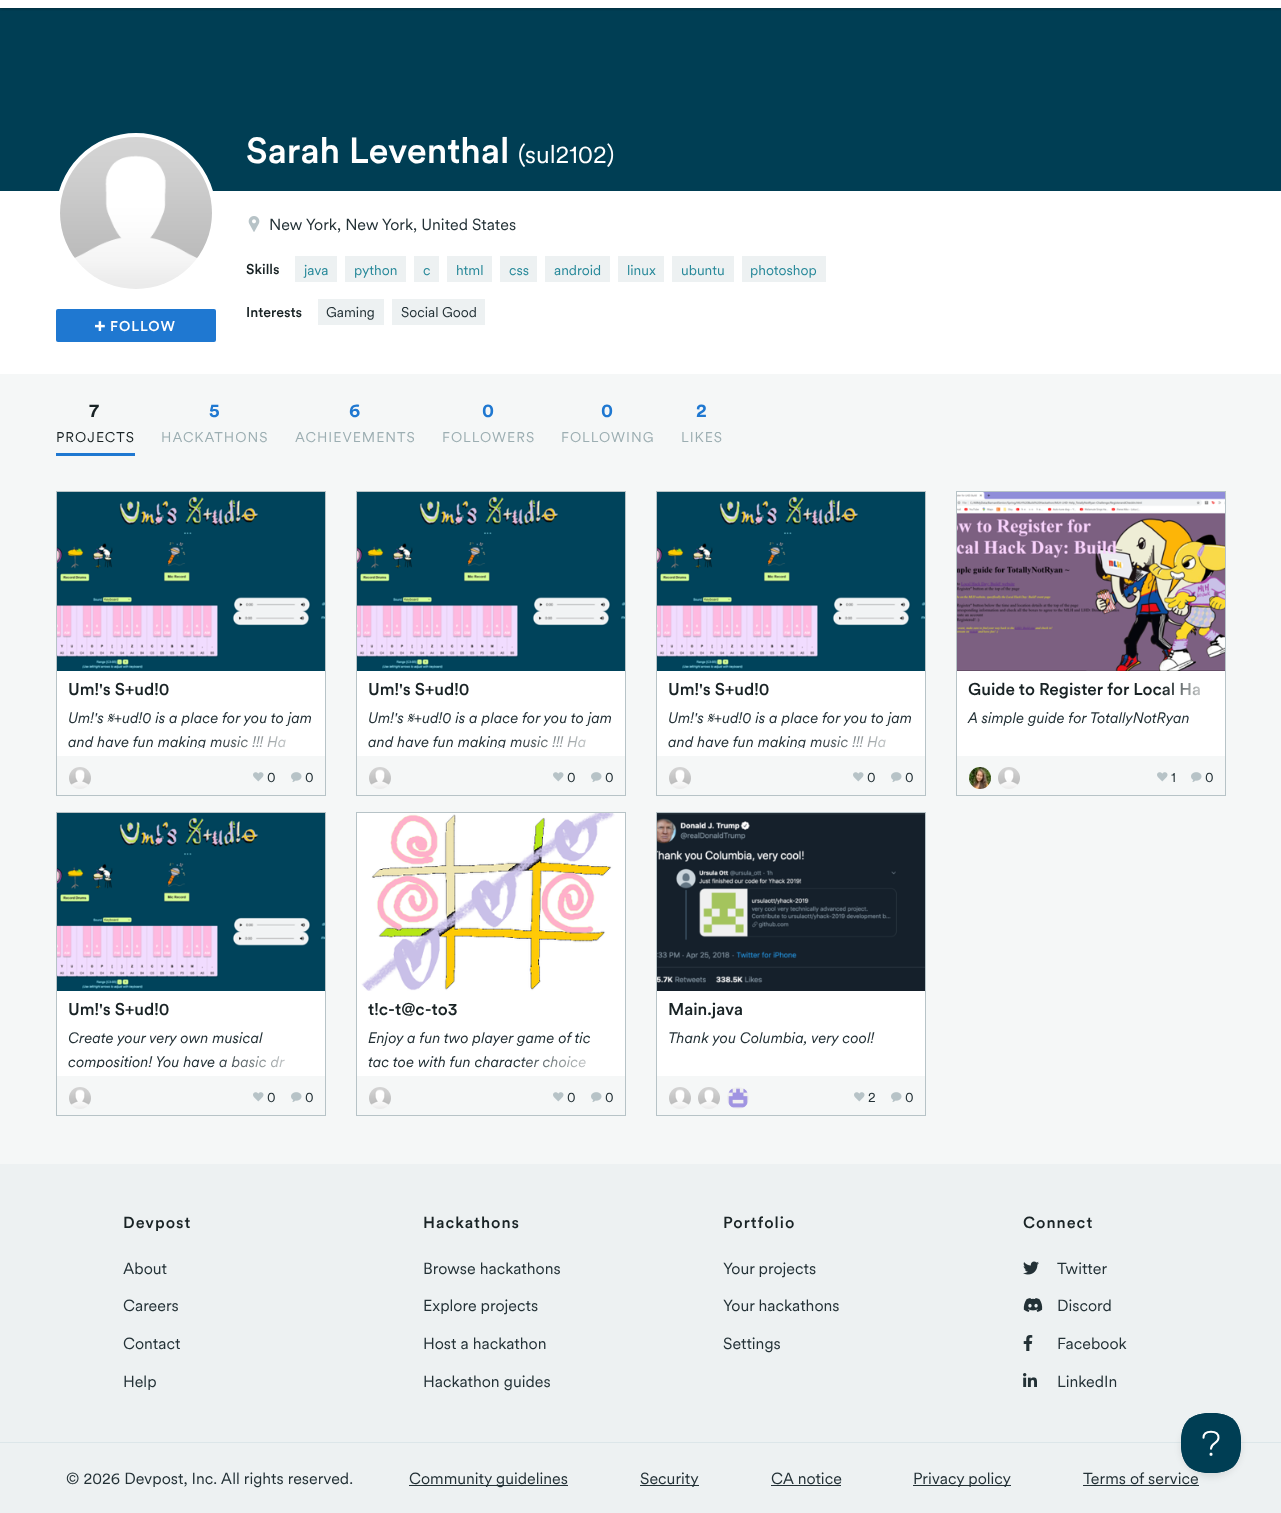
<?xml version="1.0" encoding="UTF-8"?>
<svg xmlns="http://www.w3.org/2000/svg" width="1281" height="1513">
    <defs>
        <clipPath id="clip1"><rect x="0" y="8" width="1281" height="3"/></clipPath>
        <filter id="blur1" x="-50%" y="-200%" width="200%" height="500%"><feGaussianBlur stdDeviation="1.5"/></filter>
        <clipPath id="clip2"><rect x="68" y="706" width="245" height="42"/></clipPath>
        <linearGradient id="g1" gradientUnits="userSpaceOnUse" x1="213" y1="738" x2="313" y2="738"><stop offset="0" stop-color="#FFFFFF" stop-opacity="0"/><stop offset="1" stop-color="#FFFFFF"/></linearGradient>
        <clipPath id="clip3"><rect x="368" y="706" width="245" height="42"/></clipPath>
        <linearGradient id="g2" gradientUnits="userSpaceOnUse" x1="513" y1="738" x2="613" y2="738"><stop offset="0" stop-color="#FFFFFF" stop-opacity="0"/><stop offset="1" stop-color="#FFFFFF"/></linearGradient>
        <clipPath id="clip4"><rect x="668" y="706" width="245" height="42"/></clipPath>
        <linearGradient id="g3" gradientUnits="userSpaceOnUse" x1="813" y1="738" x2="913" y2="738"><stop offset="0" stop-color="#FFFFFF" stop-opacity="0"/><stop offset="1" stop-color="#FFFFFF"/></linearGradient>
        <linearGradient id="g4" gradientUnits="userSpaceOnUse" x1="1163" y1="691" x2="1213" y2="691"><stop offset="0" stop-color="#FFFFFF" stop-opacity="0"/><stop offset="1" stop-color="#FFFFFF"/></linearGradient>
        <clipPath id="clip5"><rect x="68" y="1026" width="245" height="42"/></clipPath>
        <linearGradient id="g5" gradientUnits="userSpaceOnUse" x1="213" y1="1058" x2="313" y2="1058"><stop offset="0" stop-color="#FFFFFF" stop-opacity="0"/><stop offset="1" stop-color="#FFFFFF"/></linearGradient>
        <linearGradient id="g6" gradientUnits="userSpaceOnUse" x1="513" y1="1058" x2="613" y2="1058"><stop offset="0" stop-color="#FFFFFF" stop-opacity="0"/><stop offset="1" stop-color="#FFFFFF"/></linearGradient>
        <filter id="blur2" x="-50%" y="-200%" width="200%" height="500%"><feGaussianBlur stdDeviation="3.5"/></filter>
    </defs>
    <rect width="100%" height="100%" fill="#FFFFFF"/>
    <rect x="0" y="8" width="1281" height="183" fill="#003E54"/>
    <g clip-path="url(#clip1)">
        <rect x="0" y="-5" width="1281" height="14" fill="#000000" fill-opacity="0.3" filter="url(#blur1)"/>
    </g>
    <text x="246" y="163" font-family="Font" font-size="36" font-weight="500" fill="#FFFFFF">Sarah Leventhal</text>
    <text x="518" y="163" font-family="Font" font-size="25" fill="#FFFFFF">(sul2102)</text>
    <image x="248" y="216" width="12" height="16" href="img_01.png"/>
    <text x="269" y="230" font-family="Font" font-size="16" fill="#233136">New York, New York, United States</text>
    <text x="246" y="274" font-family="Font" font-size="14" font-weight="500" fill="#192325">Skills</text>
    <rect x="295" y="256" width="42" height="26" fill="#EDF1F2"/>
    <text x="304" y="275" font-family="Font" font-size="14" fill="#268899">java</text>
    <rect x="345" y="256" width="61" height="26" fill="#EDF1F2"/>
    <text x="354" y="275" font-family="Font" font-size="14" fill="#268899">python</text>
    <rect x="414" y="256" width="25" height="26" fill="#EDF1F2"/>
    <text x="423" y="275" font-family="Font" font-size="14" fill="#268899">c</text>
    <rect x="447" y="256" width="45" height="26" fill="#EDF1F2"/>
    <text x="456" y="275" font-family="Font" font-size="14" fill="#268899">html</text>
    <rect x="500" y="256" width="37" height="26" fill="#EDF1F2"/>
    <text x="509" y="275" font-family="Font" font-size="14" fill="#268899">css</text>
    <rect x="545" y="256" width="65" height="26" fill="#EDF1F2"/>
    <text x="554" y="275" font-family="Font" font-size="14" fill="#268899">android</text>
    <rect x="618" y="256" width="46" height="26" fill="#EDF1F2"/>
    <text x="627" y="275" font-family="Font" font-size="14" fill="#268899">linux</text>
    <rect x="672" y="256" width="62" height="26" fill="#EDF1F2"/>
    <text x="681" y="275" font-family="Font" font-size="14" fill="#268899">ubuntu</text>
    <rect x="742" y="256" width="84" height="26" fill="#EDF1F2"/>
    <text x="750" y="275" font-family="Font" font-size="14" fill="#268899">photoshop</text>
    <text x="246" y="317" font-family="Font" font-size="14" font-weight="500" fill="#192325">Interests</text>
    <rect x="318" y="299" width="66" height="26" fill="#EDF1F2"/>
    <text x="326" y="317" font-family="Font" font-size="14" fill="#233136">Gaming</text>
    <rect x="392" y="299" width="93" height="26" fill="#EDF1F2"/>
    <text x="401" y="317" font-family="Font" font-size="14" fill="#233136">Social Good</text>
    <circle cx="136" cy="213" r="78" fill="#FFFFFF" stroke="#FFFFFF" stroke-width="4"/>
    <image x="60" y="137" width="152" height="152" href="img_02.png"/>
    <rect x="56" y="309" width="160" height="33" rx="2" fill="#1F78D1"/>
    <image x="95" y="321" width="10" height="10" href="img_03.png"/>
    <text x="110" y="331" font-family="Font" font-size="14" font-weight="500" letter-spacing="1" fill="#FFFFFF">FOLLOW</text>
    <rect x="0" y="374" width="1281" height="790" fill="#F5F7F7"/>
    <rect x="56" y="453" width="79" height="3" fill="#1F78D1"/>
    <text x="89" y="417" font-family="Font" font-size="19" font-weight="700" letter-spacing="1" fill="#192325">7</text>
    <text x="56" y="442" font-family="Font" font-size="14" letter-spacing="1" fill="#192325">PROJECTS</text>
    <text x="209" y="417" font-family="Font" font-size="19" font-weight="700" letter-spacing="1" fill="#1F78D1">5</text>
    <text x="161" y="442" font-family="Font" font-size="14" letter-spacing="1" fill="#9CAEB2">HACKATHONS</text>
    <text x="349" y="417" font-family="Font" font-size="19" font-weight="700" letter-spacing="1" fill="#1F78D1">6</text>
    <text x="295" y="442" font-family="Font" font-size="14" letter-spacing="1" fill="#9CAEB2">ACHIEVEMENTS</text>
    <text x="482" y="417" font-family="Font" font-size="19" font-weight="700" letter-spacing="1" fill="#1F78D1">0</text>
    <text x="442" y="442" font-family="Font" font-size="14" letter-spacing="1" fill="#9CAEB2">FOLLOWERS</text>
    <text x="601" y="417" font-family="Font" font-size="19" font-weight="700" letter-spacing="1" fill="#1F78D1">0</text>
    <text x="561" y="442" font-family="Font" font-size="14" letter-spacing="1" fill="#9CAEB2">FOLLOWING</text>
    <text x="696" y="417" font-family="Font" font-size="19" font-weight="700" letter-spacing="1" fill="#1F78D1">2</text>
    <text x="681" y="442" font-family="Font" font-size="14" letter-spacing="1" fill="#9CAEB2">LIKES</text>
    <rect x="57" y="671" width="268" height="85" fill="#FFFFFF"/>
    <rect x="56.5" y="491.5" width="269" height="304" fill="none" stroke="#B7C3C7"/>
    <image x="57" y="492" width="268" height="179" href="img_04.png"/>
    <text x="68" y="695" font-family="Font" font-size="17" font-weight="500" fill="#192325">Um!'s S+ud!0</text>
    <text x="68" y="723" font-family="Font" font-size="15" font-style="italic" fill="#233136">Um!'s</text>
    <text x="107" y="723" font-family="FreeSerif" font-size="15" font-style="italic" fill="#233136">𝄋</text>
    <text x="114" y="723" font-family="Font" font-size="15" font-style="italic" fill="#233136">+ud!0 is a place for you to jam</text>
    <g clip-path="url(#clip2)">
        <text x="68" y="747" font-family="Font" font-size="15" font-style="italic" fill="#233136">and have fun making music !!! Ha</text>
    </g>
    <rect x="215" y="736" width="71" height="12" fill="url(#g1)"/>
    <image x="69" y="767" width="22" height="22" href="img_05.png"/>
    <image x="253" y="772" width="11" height="10" href="img_06.png"/>
    <text x="267" y="782" font-family="Font" font-size="14" fill="#233136">0</text>
    <image x="291" y="772" width="11" height="10" href="img_07.png"/>
    <text x="305" y="782" font-family="Font" font-size="14" fill="#233136">0</text>
    <rect x="357" y="671" width="268" height="85" fill="#FFFFFF"/>
    <rect x="356.5" y="491.5" width="269" height="304" fill="none" stroke="#B7C3C7"/>
    <image x="357" y="492" width="268" height="179" href="img_04.png"/>
    <text x="368" y="695" font-family="Font" font-size="17" font-weight="500" fill="#192325">Um!'s S+ud!0</text>
    <text x="368" y="723" font-family="Font" font-size="15" font-style="italic" fill="#233136">Um!'s</text>
    <text x="407" y="723" font-family="FreeSerif" font-size="15" font-style="italic" fill="#233136">𝄋</text>
    <text x="414" y="723" font-family="Font" font-size="15" font-style="italic" fill="#233136">+ud!0 is a place for you to jam</text>
    <g clip-path="url(#clip3)">
        <text x="368" y="747" font-family="Font" font-size="15" font-style="italic" fill="#233136">and have fun making music !!! Ha</text>
    </g>
    <rect x="515" y="736" width="71" height="12" fill="url(#g2)"/>
    <image x="369" y="767" width="22" height="22" href="img_08.png"/>
    <image x="553" y="772" width="11" height="10" href="img_06.png"/>
    <text x="567" y="782" font-family="Font" font-size="14" fill="#233136">0</text>
    <image x="591" y="772" width="11" height="10" href="img_07.png"/>
    <text x="605" y="782" font-family="Font" font-size="14" fill="#233136">0</text>
    <rect x="657" y="671" width="268" height="85" fill="#FFFFFF"/>
    <rect x="656.5" y="491.5" width="269" height="304" fill="none" stroke="#B7C3C7"/>
    <image x="657" y="492" width="268" height="179" href="img_09.png"/>
    <text x="668" y="695" font-family="Font" font-size="17" font-weight="500" fill="#192325">Um!'s S+ud!0</text>
    <text x="668" y="723" font-family="Font" font-size="15" font-style="italic" fill="#233136">Um!'s</text>
    <text x="707" y="723" font-family="FreeSerif" font-size="15" font-style="italic" fill="#233136">𝄋</text>
    <text x="714" y="723" font-family="Font" font-size="15" font-style="italic" fill="#233136">+ud!0 is a place for you to jam</text>
    <g clip-path="url(#clip4)">
        <text x="668" y="747" font-family="Font" font-size="15" font-style="italic" fill="#233136">and have fun making music !!! Ha</text>
    </g>
    <rect x="815" y="736" width="71" height="12" fill="url(#g3)"/>
    <image x="669" y="767" width="22" height="22" href="img_05.png"/>
    <image x="853" y="772" width="11" height="10" href="img_06.png"/>
    <text x="867" y="782" font-family="Font" font-size="14" fill="#233136">0</text>
    <image x="891" y="772" width="11" height="10" href="img_07.png"/>
    <text x="905" y="782" font-family="Font" font-size="14" fill="#233136">0</text>
    <rect x="957" y="671" width="268" height="85" fill="#FFFFFF"/>
    <rect x="956.5" y="491.5" width="269" height="304" fill="none" stroke="#B7C3C7"/>
    <image x="957" y="492" width="268" height="179" href="img_10.png"/>
    <text x="968" y="695" font-family="Font" font-size="17" font-weight="500" fill="#192325">Guide to Register for Local Ha</text>
    <rect x="1164" y="682" width="36" height="14" fill="url(#g4)"/>
    <text x="968" y="723" font-family="Font" font-size="15" font-style="italic" fill="#233136">A simple guide for TotallyNotRyan</text>
    <image x="969" y="767" width="22" height="22" href="img_11.png"/>
    <image x="998" y="767" width="22" height="22" href="img_12.png"/>
    <image x="1157" y="772" width="11" height="10" href="img_06.png"/>
    <text x="1171" y="782" font-family="Font" font-size="14" fill="#233136">1</text>
    <image x="1191" y="772" width="11" height="10" href="img_07.png"/>
    <text x="1205" y="782" font-family="Font" font-size="14" fill="#233136">0</text>
    <rect x="57" y="991" width="268" height="85" fill="#FFFFFF"/>
    <rect x="56.5" y="812.5" width="269" height="303" fill="none" stroke="#B7C3C7"/>
    <image x="57" y="813" width="268" height="178" href="img_13.png"/>
    <text x="68" y="1015" font-family="Font" font-size="17" font-weight="500" fill="#192325">Um!'s S+ud!0</text>
    <text x="68" y="1043" font-family="Font" font-size="15" font-style="italic" fill="#233136">Create your very own musical</text>
    <g clip-path="url(#clip5)">
        <text x="68" y="1067" font-family="Font" font-size="15" font-style="italic" fill="#233136">composition! You have a basic dr</text>
    </g>
    <rect x="219" y="1056" width="66" height="12" fill="url(#g5)"/>
    <image x="69" y="1087" width="22" height="22" href="img_05.png"/>
    <image x="253" y="1092" width="11" height="10" href="img_06.png"/>
    <text x="267" y="1102" font-family="Font" font-size="14" fill="#233136">0</text>
    <image x="291" y="1092" width="11" height="10" href="img_07.png"/>
    <text x="305" y="1102" font-family="Font" font-size="14" fill="#233136">0</text>
    <rect x="357" y="813" width="268" height="263" fill="#FFFFFF"/>
    <rect x="356.5" y="812.5" width="269" height="303" fill="none" stroke="#B7C3C7"/>
    <image x="361" y="813" width="254" height="178" href="img_14.png"/>
    <text x="368" y="1015" font-family="Font" font-size="17" font-weight="500" fill="#192325">t!c-t@c-to3</text>
    <text font-family="Font" font-size="15" font-style="italic" fill="#233136">
        <tspan x="368" y="1043">Enjoy a fun two player game of tic</tspan>
        <tspan x="368" y="1067">tac toe with fun character choice</tspan>
    </text>
    <rect x="515" y="1056" width="71" height="12" fill="url(#g6)"/>
    <image x="369" y="1087" width="22" height="22" href="img_08.png"/>
    <image x="553" y="1092" width="11" height="10" href="img_06.png"/>
    <text x="567" y="1102" font-family="Font" font-size="14" fill="#233136">0</text>
    <image x="591" y="1092" width="11" height="10" href="img_07.png"/>
    <text x="605" y="1102" font-family="Font" font-size="14" fill="#233136">0</text>
    <rect x="657" y="991" width="268" height="85" fill="#FFFFFF"/>
    <rect x="656.5" y="812.5" width="269" height="303" fill="none" stroke="#B7C3C7"/>
    <image x="657" y="813" width="268" height="178" href="img_15.png"/>
    <text x="668" y="1015" font-family="Font" font-size="17" font-weight="500" fill="#192325">Main.java</text>
    <text x="668" y="1043" font-family="Font" font-size="15" font-style="italic" fill="#233136">Thank you Columbia, very cool!</text>
    <image x="669" y="1087" width="22" height="22" href="img_05.png"/>
    <image x="698" y="1087" width="22" height="22" href="img_05.png"/>
    <image x="727" y="1087" width="22" height="22" href="img_16.png"/>
    <image x="854" y="1092" width="11" height="10" href="img_06.png"/>
    <text x="868" y="1102" font-family="Font" font-size="14" fill="#233136">2</text>
    <image x="891" y="1092" width="11" height="10" href="img_07.png"/>
    <text x="905" y="1102" font-family="Font" font-size="14" fill="#233136">0</text>
    <rect x="0" y="1164" width="1281" height="349" fill="#EDF1F2"/>
    <text x="123" y="1228" font-family="Font" font-size="16" font-weight="500" letter-spacing="1" fill="#192325">Devpost</text>
    <text x="123" y="1274" font-family="Font" font-size="16" fill="#233136">About</text>
    <text x="123" y="1311" font-family="Font" font-size="16" fill="#233136">Careers</text>
    <text x="123" y="1349" font-family="Font" font-size="16" fill="#233136">Contact</text>
    <text x="123" y="1387" font-family="Font" font-size="16" fill="#233136">Help</text>
    <text x="423" y="1228" font-family="Font" font-size="16" font-weight="500" letter-spacing="1" fill="#192325">Hackathons</text>
    <text x="423" y="1274" font-family="Font" font-size="16" fill="#233136">Browse hackathons</text>
    <text x="423" y="1311" font-family="Font" font-size="16" fill="#233136">Explore projects</text>
    <text x="423" y="1349" font-family="Font" font-size="16" fill="#233136">Host a hackathon</text>
    <text x="423" y="1387" font-family="Font" font-size="16" fill="#233136">Hackathon guides</text>
    <text x="723" y="1228" font-family="Font" font-size="16" font-weight="500" letter-spacing="1" fill="#192325">Portfolio</text>
    <text x="723" y="1274" font-family="Font" font-size="16" fill="#233136">Your projects</text>
    <text x="723" y="1311" font-family="Font" font-size="16" fill="#233136">Your hackathons</text>
    <text x="723" y="1349" font-family="Font" font-size="16" fill="#233136">Settings</text>
    <text x="1023" y="1228" font-family="Font" font-size="16" font-weight="500" letter-spacing="1" fill="#192325">Connect</text>
    <image x="1023" y="1261" width="16" height="14" href="img_17.png"/>
    <text x="1057" y="1274" font-family="Font" font-size="16" fill="#233136">Twitter</text>
    <image x="1023" y="1298" width="20" height="14" href="img_18.png"/>
    <text x="1057" y="1311" font-family="Font" font-size="16" fill="#233136">Discord</text>
    <image x="1023" y="1335" width="10" height="16" href="img_19.png"/>
    <text x="1057" y="1349" font-family="Font" font-size="16" fill="#233136">Facebook</text>
    <image x="1023" y="1373" width="14" height="14" href="img_20.png"/>
    <text x="1057" y="1387" font-family="Font" font-size="16" fill="#233136">LinkedIn</text>
    <rect x="0" y="1442" width="1281" height="1" fill="#DCE6E9"/>
    <text x="66" y="1484" font-family="Font" font-size="16" fill="#233136">© 2026 Devpost, Inc. All rights reserved.</text>
    <rect x="409" y="1485" width="159" height="1" fill="#233136"/>
    <text x="409" y="1484" font-family="Font" font-size="16" fill="#233136">Community guidelines</text>
    <rect x="640" y="1485" width="59" height="1" fill="#233136"/>
    <text x="640" y="1484" font-family="Font" font-size="16" fill="#233136">Security</text>
    <text x="771" y="1484" font-family="Font" font-size="16" fill="#233136">CA notice</text>
    <rect x="771" y="1485" width="70" height="1" fill="#233136"/>
    <rect x="913" y="1485" width="98" height="1" fill="#233136"/>
    <text x="913" y="1484" font-family="Font" font-size="16" fill="#233136">Privacy policy</text>
    <text x="1083" y="1484" font-family="Font" font-size="16" fill="#233136">Terms of service</text>
    <rect x="1083" y="1485" width="116" height="1" fill="#233136"/>
    <rect x="1181" y="1417" width="60" height="60" rx="30" fill="#000000" fill-opacity="0.1" filter="url(#blur2)"/>
    <image x="1181" y="1413" width="60" height="60" href="img_21.png"/>
</svg>
